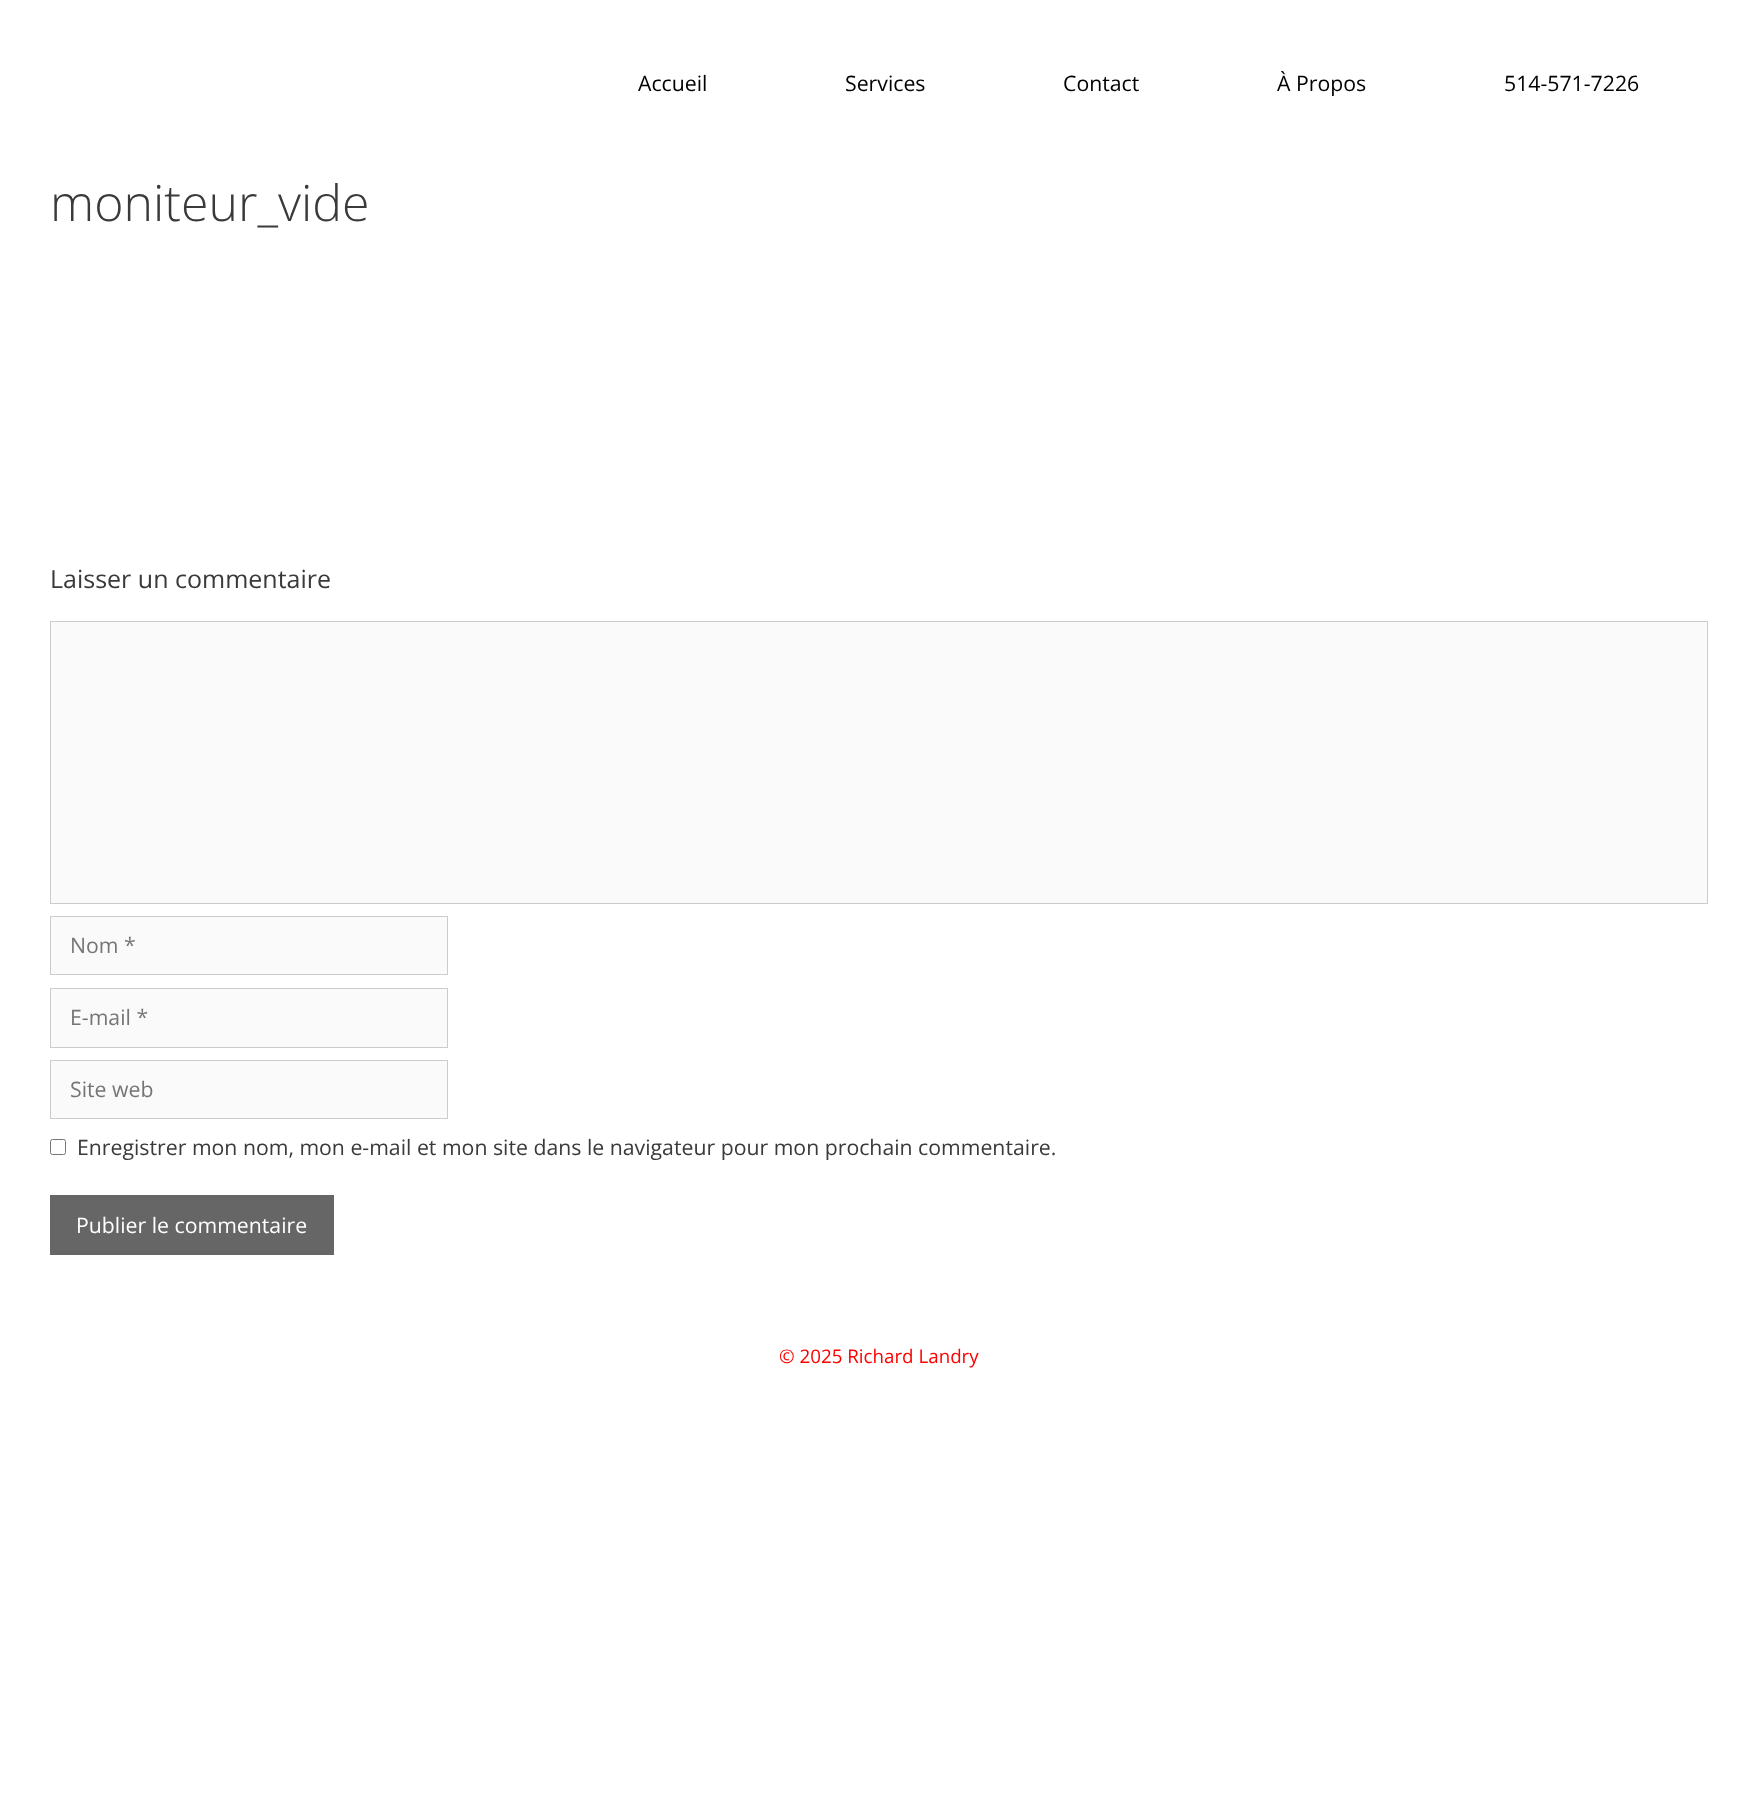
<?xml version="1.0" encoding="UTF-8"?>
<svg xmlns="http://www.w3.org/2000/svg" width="1757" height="1819">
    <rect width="100%" height="100%" fill="#FFFFFF"/>
    <text x="638" y="91" font-family="Open Sans" font-size="21.25" fill="#000000">Accueil</text>
    <text x="845" y="91" font-family="Open Sans" font-size="21.25" fill="#000000">Services</text>
    <text x="1063" y="91" font-family="Open Sans" font-size="21.25" fill="#000000">Contact</text>
    <text x="1277" y="91" font-family="Open Sans" font-size="21.25" fill="#000000">À Propos</text>
    <text x="1504" y="91" font-family="Open Sans" font-size="21.25" fill="#000000">514-571-7226</text>
    <text x="50" y="221" font-family="Open Sans" font-size="50" font-weight="300" fill="#3A3A3A">moniteur_vide</text>
    <text x="50" y="588" font-family="Open Sans" font-size="25" fill="#3A3A3A">Laisser un commentaire</text>
    <rect x="50.5" y="621.5" width="1657" height="282" fill="#FAFAFA" stroke="#CCCCCC"/>
    <rect x="50.5" y="916.5" width="397" height="58" fill="#FAFAFA" stroke="#CCCCCC"/>
    <text x="70" y="953" font-family="Open Sans" font-size="21.25" fill="#757575">Nom *</text>
    <rect x="50.5" y="988.5" width="397" height="59" fill="#FAFAFA" stroke="#CCCCCC"/>
    <text x="70" y="1025" font-family="Open Sans" font-size="21.25" fill="#757575">E-mail *</text>
    <rect x="50.5" y="1060.5" width="397" height="58" fill="#FAFAFA" stroke="#CCCCCC"/>
    <text x="70" y="1097" font-family="Open Sans" font-size="21.25" fill="#757575">Site web</text>
    <rect x="50.5" y="1139.5" width="15" height="15" rx="2" fill="none" stroke="#767676"/>
    <text x="77" y="1155" font-family="Open Sans" font-size="21.25" fill="#3A3A3A">Enregistrer mon nom, mon e-mail et mon site dans le navigateur pour mon prochain commentaire.</text>
    <rect x="50" y="1195" width="284" height="60" fill="#666666"/>
    <text x="76" y="1233" font-family="Open Sans" font-size="21.25" fill="#FFFFFF">Publier le commentaire</text>
    <text x="779" y="1363" font-family="Open Sans" font-size="18.75" fill="#FF0000">© 2025 Richard Landry</text>
</svg>
